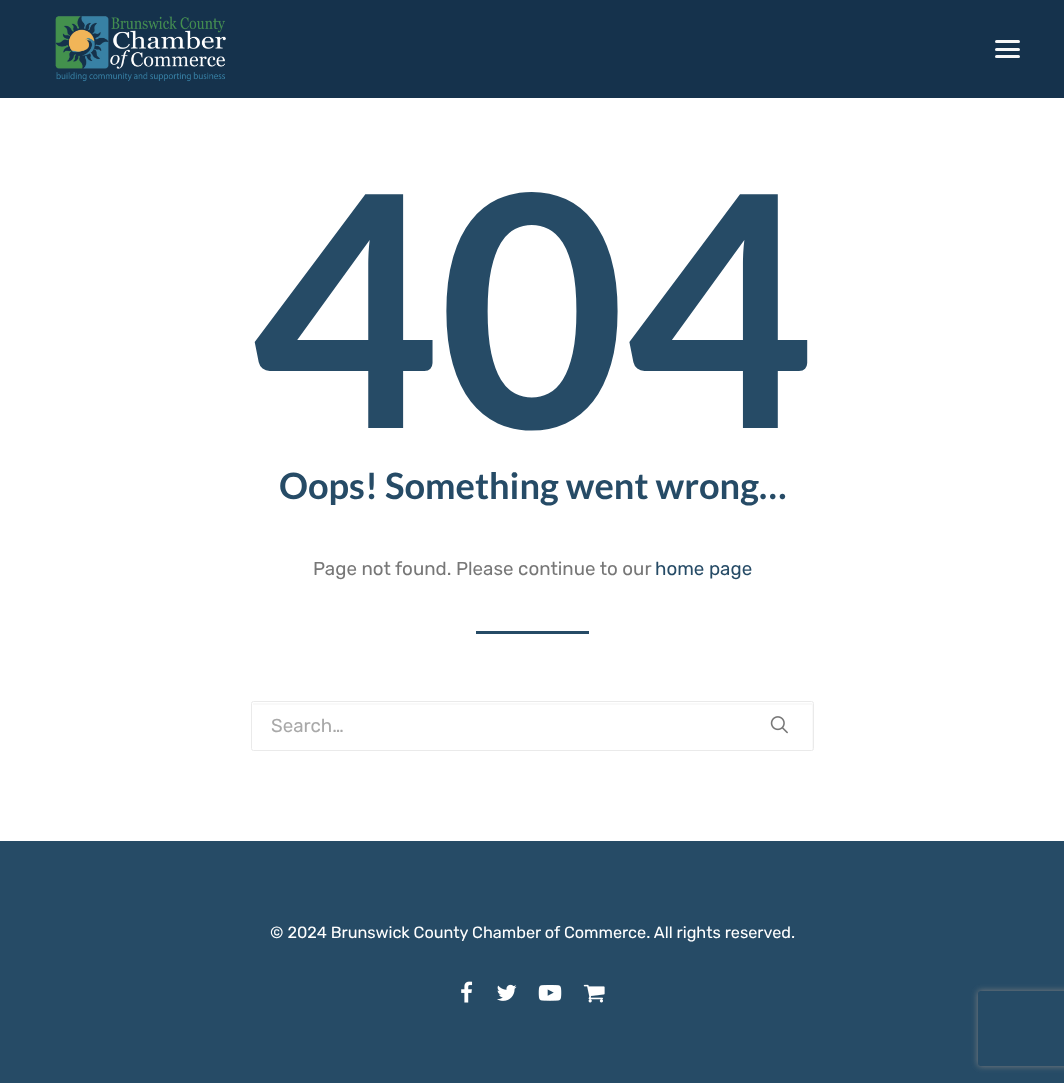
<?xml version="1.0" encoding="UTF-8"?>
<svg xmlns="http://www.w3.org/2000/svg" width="1064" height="1083">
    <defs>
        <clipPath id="clip1"><path d="M 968 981 H 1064 V 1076 H 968 Z M 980.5 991 H 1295.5 C 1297 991 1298 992 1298 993.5 V 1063.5 C 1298 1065 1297 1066 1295.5 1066 H 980.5 C 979 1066 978 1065 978 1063.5 V 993.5 C 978 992 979 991 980.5 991 Z" clip-rule="evenodd"/></clipPath>
        <filter id="blur1" x="-50%" y="-200%" width="200%" height="500%"><feGaussianBlur stdDeviation="3"/></filter>
    </defs>
    <rect width="100%" height="100%" fill="#FFFFFF"/>
    <rect x="0" y="0" width="1064" height="98" fill="#15324C"/>
    <image x="55" y="16" width="171" height="66" href="img_01.png"/>
    <rect x="995" y="48" width="25" height="3" rx="1.5" fill="#F7F7F7"/>
    <rect x="995" y="40" width="25" height="3" rx="1.5" fill="#F7F7F7"/>
    <rect x="995" y="55" width="25" height="3" rx="1.5" fill="#F7F7F7"/>
    <text x="251" y="428" font-family="Lato" font-size="323" font-weight="700" fill="#264B66">404</text>
    <text x="279" y="499" font-family="Lato" font-size="36.25" font-weight="700" fill="#264B66">Oops! Something went wrong…</text>
    <text x="313" y="575" font-family="Rubik" font-size="18.75" fill="#777777">Page not found. Please continue to our</text>
    <text x="655" y="575" font-family="Rubik" font-size="18.75" fill="#264B66">home page</text>
    <rect x="476" y="631" width="113" height="3" fill="#264B66"/>
    <path d="M 254 705 H 811 C 812 705 812 706 812 706 V 750 L 813 749 V 712 C 813 710 814 703 812 703 H 253 V 705 Z" fill="#F9F9F9"/>
    <rect x="251.5" y="701.5" width="562" height="49" rx="2" fill="none" stroke="#EAEAEA"/>
    <text x="271" y="732" font-family="Rubik" font-size="18.75" fill="#A9A9A9">Search…</text>
    <image x="770" y="716" width="18" height="18" href="img_02.png"/>
    <rect x="0" y="841" width="1064" height="242" fill="#264B66"/>
    <text x="270" y="938" font-family="Rubik" font-size="16.25" fill="#FFFFFF">© 2024 Brunswick County Chamber of Commerce. All rights reserved.</text>
    <image x="461" y="981" width="12" height="22" href="img_03.png"/>
    <image x="497" y="984" width="20" height="17" href="img_04.png"/>
    <image x="538" y="985" width="24" height="16" href="img_05.png"/>
    <image x="583" y="984" width="22" height="19" href="img_06.png"/>
    <g clip-path="url(#clip1)">
        <rect x="978" y="991" width="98" height="75" rx="2.5" fill="#808080" filter="url(#blur1)"/>
    </g>
</svg>
